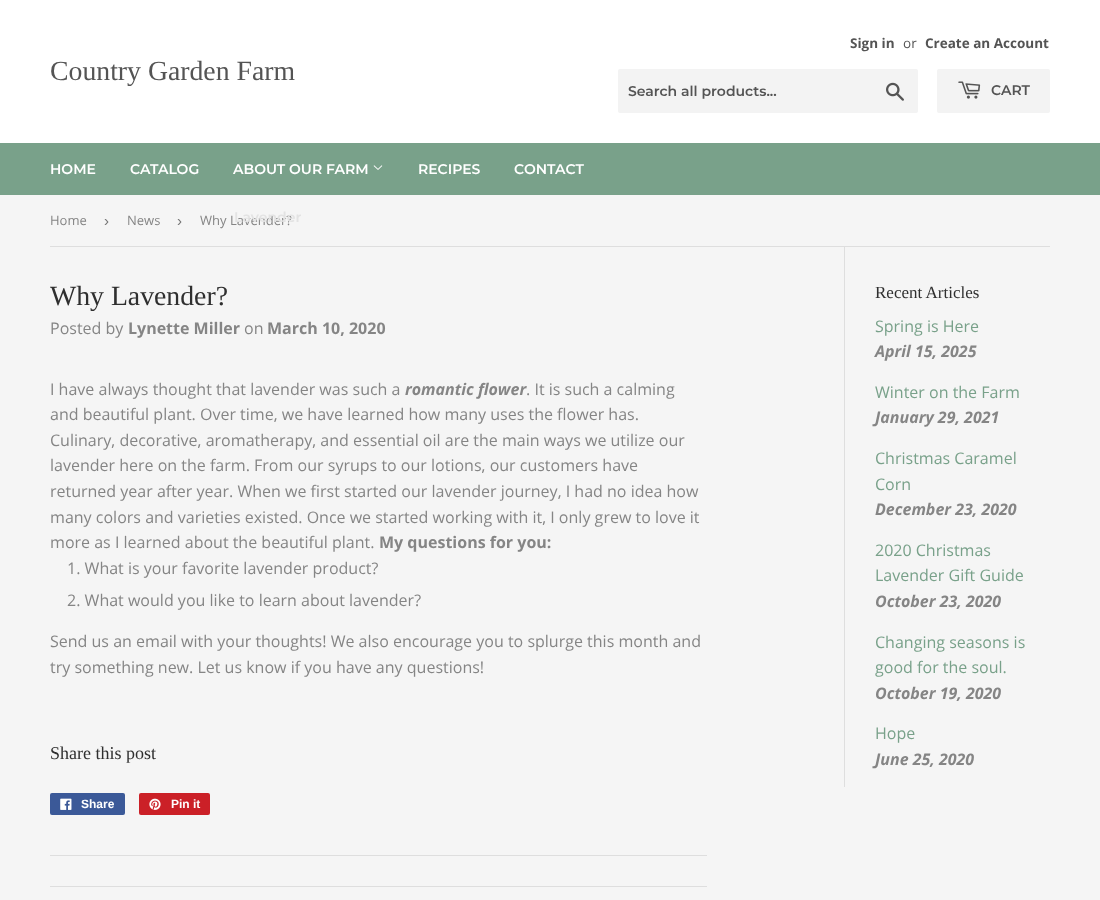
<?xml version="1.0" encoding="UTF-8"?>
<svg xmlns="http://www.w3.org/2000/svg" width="1100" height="900">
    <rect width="100%" height="100%" fill="#F5F5F5"/>
    <rect x="0" y="0" width="1100" height="143" fill="#FFFFFF"/>
    <text x="50" y="80" font-family="Liberation Serif" font-size="27.75" fill="#545454">Country Garden Farm</text>
    <text x="850" y="48" font-family="Open Sans" font-size="13.5" font-weight="700" fill="#545454">Sign in</text>
    <text x="903" y="48" font-family="Open Sans" font-size="13.5" fill="#545454">or</text>
    <text x="925" y="48" font-family="Open Sans" font-size="13.5" font-weight="700" fill="#545454">Create an Account</text>
    <rect x="618" y="69" width="300" height="44" rx="2" fill="#F3F3F3"/>
    <text x="628" y="96" font-family="Montserrat" font-size="14" font-weight="600" fill="#545454">Search all products...</text>
    <image x="886" y="82" width="18" height="19" href="img_01.png"/>
    <rect x="937" y="69" width="113" height="44" rx="2" fill="#F3F3F3"/>
    <image x="958" y="81" width="23" height="18" href="img_02.png"/>
    <text x="991" y="95" font-family="Montserrat" font-size="14" font-weight="600" fill="#545454">CART</text>
    <rect x="0" y="143" width="1100" height="52" fill="#79A18A"/>
    <text x="50" y="174" font-family="Montserrat" font-size="14" font-weight="600" fill="#FFFFFF">HOME</text>
    <text x="130" y="174" font-family="Montserrat" font-size="14" font-weight="600" fill="#FFFFFF">CATALOG</text>
    <text x="233" y="174" font-family="Montserrat" font-size="14" font-weight="600" fill="#FFFFFF">ABOUT OUR FARM</text>
    <image x="373" y="165" width="10" height="5" href="img_03.png"/>
    <text x="200" y="225" font-family="Open Sans" font-size="13" fill="#858585">Why Lavender?</text>
    <text x="234" y="222" font-family="Montserrat" font-size="14" font-weight="600" fill="#E3E3E3">Lavender</text>
    <text x="418" y="174" font-family="Montserrat" font-size="14" font-weight="600" fill="#FFFFFF">RECIPES</text>
    <text x="514" y="174" font-family="Montserrat" font-size="14" font-weight="600" fill="#FFFFFF">CONTACT</text>
    <rect x="50" y="246" width="1000" height="1" fill="#DEDEDE"/>
    <text x="50" y="225" font-family="Open Sans" font-size="13" fill="#858585">Home</text>
    <text x="104" y="226" font-family="Liberation Sans" font-size="15" fill="#767676">›</text>
    <text x="127" y="225" font-family="Open Sans" font-size="13" fill="#858585">News</text>
    <text x="177" y="226" font-family="Liberation Sans" font-size="15" fill="#767676">›</text>
    <text x="50" y="305" font-family="Liberation Serif" font-size="27.75" fill="#2F2F2F">Why Lavender?</text>
    <text x="50" y="334" font-family="Open Sans" font-size="16" fill="#858585">Posted by</text>
    <text x="128" y="334" font-family="Open Sans" font-size="16" font-weight="700" fill="#858585">Lynette Miller</text>
    <text x="244" y="334" font-family="Open Sans" font-size="16" fill="#858585">on</text>
    <text x="267" y="334" font-family="Open Sans" font-size="16" font-weight="700" fill="#858585">March 10, 2020</text>
    <text x="50" y="395" font-family="Open Sans" font-size="16" fill="#858585">I have always thought that lavender was such a</text>
    <text x="405" y="395" font-family="Open Sans" font-size="16" font-weight="700" font-style="italic" fill="#858585">romantic flower</text>
    <text x="526" y="395" font-family="Open Sans" font-size="16" fill="#858585">. It is such a calming</text>
    <text font-family="Open Sans" font-size="16" fill="#858585">
        <tspan x="50" y="420">and beautiful plant. Over time, we have learned how many uses the flower has.</tspan>
        <tspan x="50" y="446">Culinary, decorative, aromatherapy, and essential oil are the main ways we utilize our</tspan>
        <tspan x="50" y="471">lavender here on the farm. From our syrups to our lotions, our customers have</tspan>
        <tspan x="50" y="497">returned year after year. When we first started our lavender journey, I had no idea how</tspan>
        <tspan x="50" y="523">many colors and varieties existed. Once we started working with it, I only grew to love it</tspan>
        <tspan x="50" y="548">more as I learned about the beautiful plant.</tspan>
    </text>
    <text x="379" y="548" font-family="Open Sans" font-size="16" font-weight="700" fill="#858585">My questions for you:</text>
    <text x="67" y="574" font-family="Open Sans" font-size="16" fill="#858585">1. What is your favorite lavender product?</text>
    <text x="67" y="606" font-family="Open Sans" font-size="16" fill="#858585">2. What would you like to learn about lavender?</text>
    <text font-family="Open Sans" font-size="16" fill="#858585">
        <tspan x="50" y="647">Send us an email with your thoughts! We also encourage you to splurge this month and</tspan>
        <tspan x="50" y="673">try something new. Let us know if you have any questions!</tspan>
    </text>
    <text x="50" y="759" font-family="Liberation Serif" font-size="18" fill="#2F2F2F">Share this post</text>
    <rect x="50" y="793" width="75" height="22" rx="2" fill="#3B5998"/>
    <image x="60" y="798" width="12" height="12" href="img_04.png"/>
    <text x="81" y="808" font-family="Liberation Sans" font-size="12" font-weight="700" fill="#FFFFFF">Share</text>
    <rect x="139" y="793" width="71" height="22" rx="2" fill="#CB2027"/>
    <image x="149" y="798" width="12" height="12" href="img_05.png"/>
    <text x="171" y="808" font-family="Liberation Sans" font-size="12" font-weight="700" fill="#FFFFFF">Pin it</text>
    <rect x="50" y="855" width="657" height="1" fill="#DEDEDE"/>
    <rect x="50" y="886" width="657" height="1" fill="#DEDEDE"/>
    <rect x="844" y="247" width="1" height="540" fill="#DEDEDE"/>
    <text x="875" y="298" font-family="Liberation Serif" font-size="17" fill="#2F2F2F">Recent Articles</text>
    <text x="875" y="332" font-family="Open Sans" font-size="16" fill="#79A18A">Spring is Here</text>
    <text x="875" y="357" font-family="Open Sans" font-size="16" font-weight="700" font-style="italic" fill="#858585">April 15, 2025</text>
    <text x="875" y="398" font-family="Open Sans" font-size="16" fill="#79A18A">Winter on the Farm</text>
    <text x="875" y="423" font-family="Open Sans" font-size="16" font-weight="700" font-style="italic" fill="#858585">January 29, 2021</text>
    <text font-family="Open Sans" font-size="16" fill="#79A18A">
        <tspan x="875" y="464">Christmas Caramel</tspan>
        <tspan x="875" y="490">Corn</tspan>
    </text>
    <text x="875" y="515" font-family="Open Sans" font-size="16" font-weight="700" font-style="italic" fill="#858585">December 23, 2020</text>
    <text font-family="Open Sans" font-size="16" fill="#79A18A">
        <tspan x="875" y="556">2020 Christmas</tspan>
        <tspan x="875" y="581">Lavender Gift Guide</tspan>
    </text>
    <text x="875" y="607" font-family="Open Sans" font-size="16" font-weight="700" font-style="italic" fill="#858585">October 23, 2020</text>
    <text font-family="Open Sans" font-size="16" fill="#79A18A">
        <tspan x="875" y="648">Changing seasons is</tspan>
        <tspan x="875" y="673">good for the soul.</tspan>
    </text>
    <text x="875" y="699" font-family="Open Sans" font-size="16" font-weight="700" font-style="italic" fill="#858585">October 19, 2020</text>
    <text x="875" y="739" font-family="Open Sans" font-size="16" fill="#79A18A">Hope</text>
    <text x="875" y="765" font-family="Open Sans" font-size="16" font-weight="700" font-style="italic" fill="#858585">June 25, 2020</text>
</svg>
